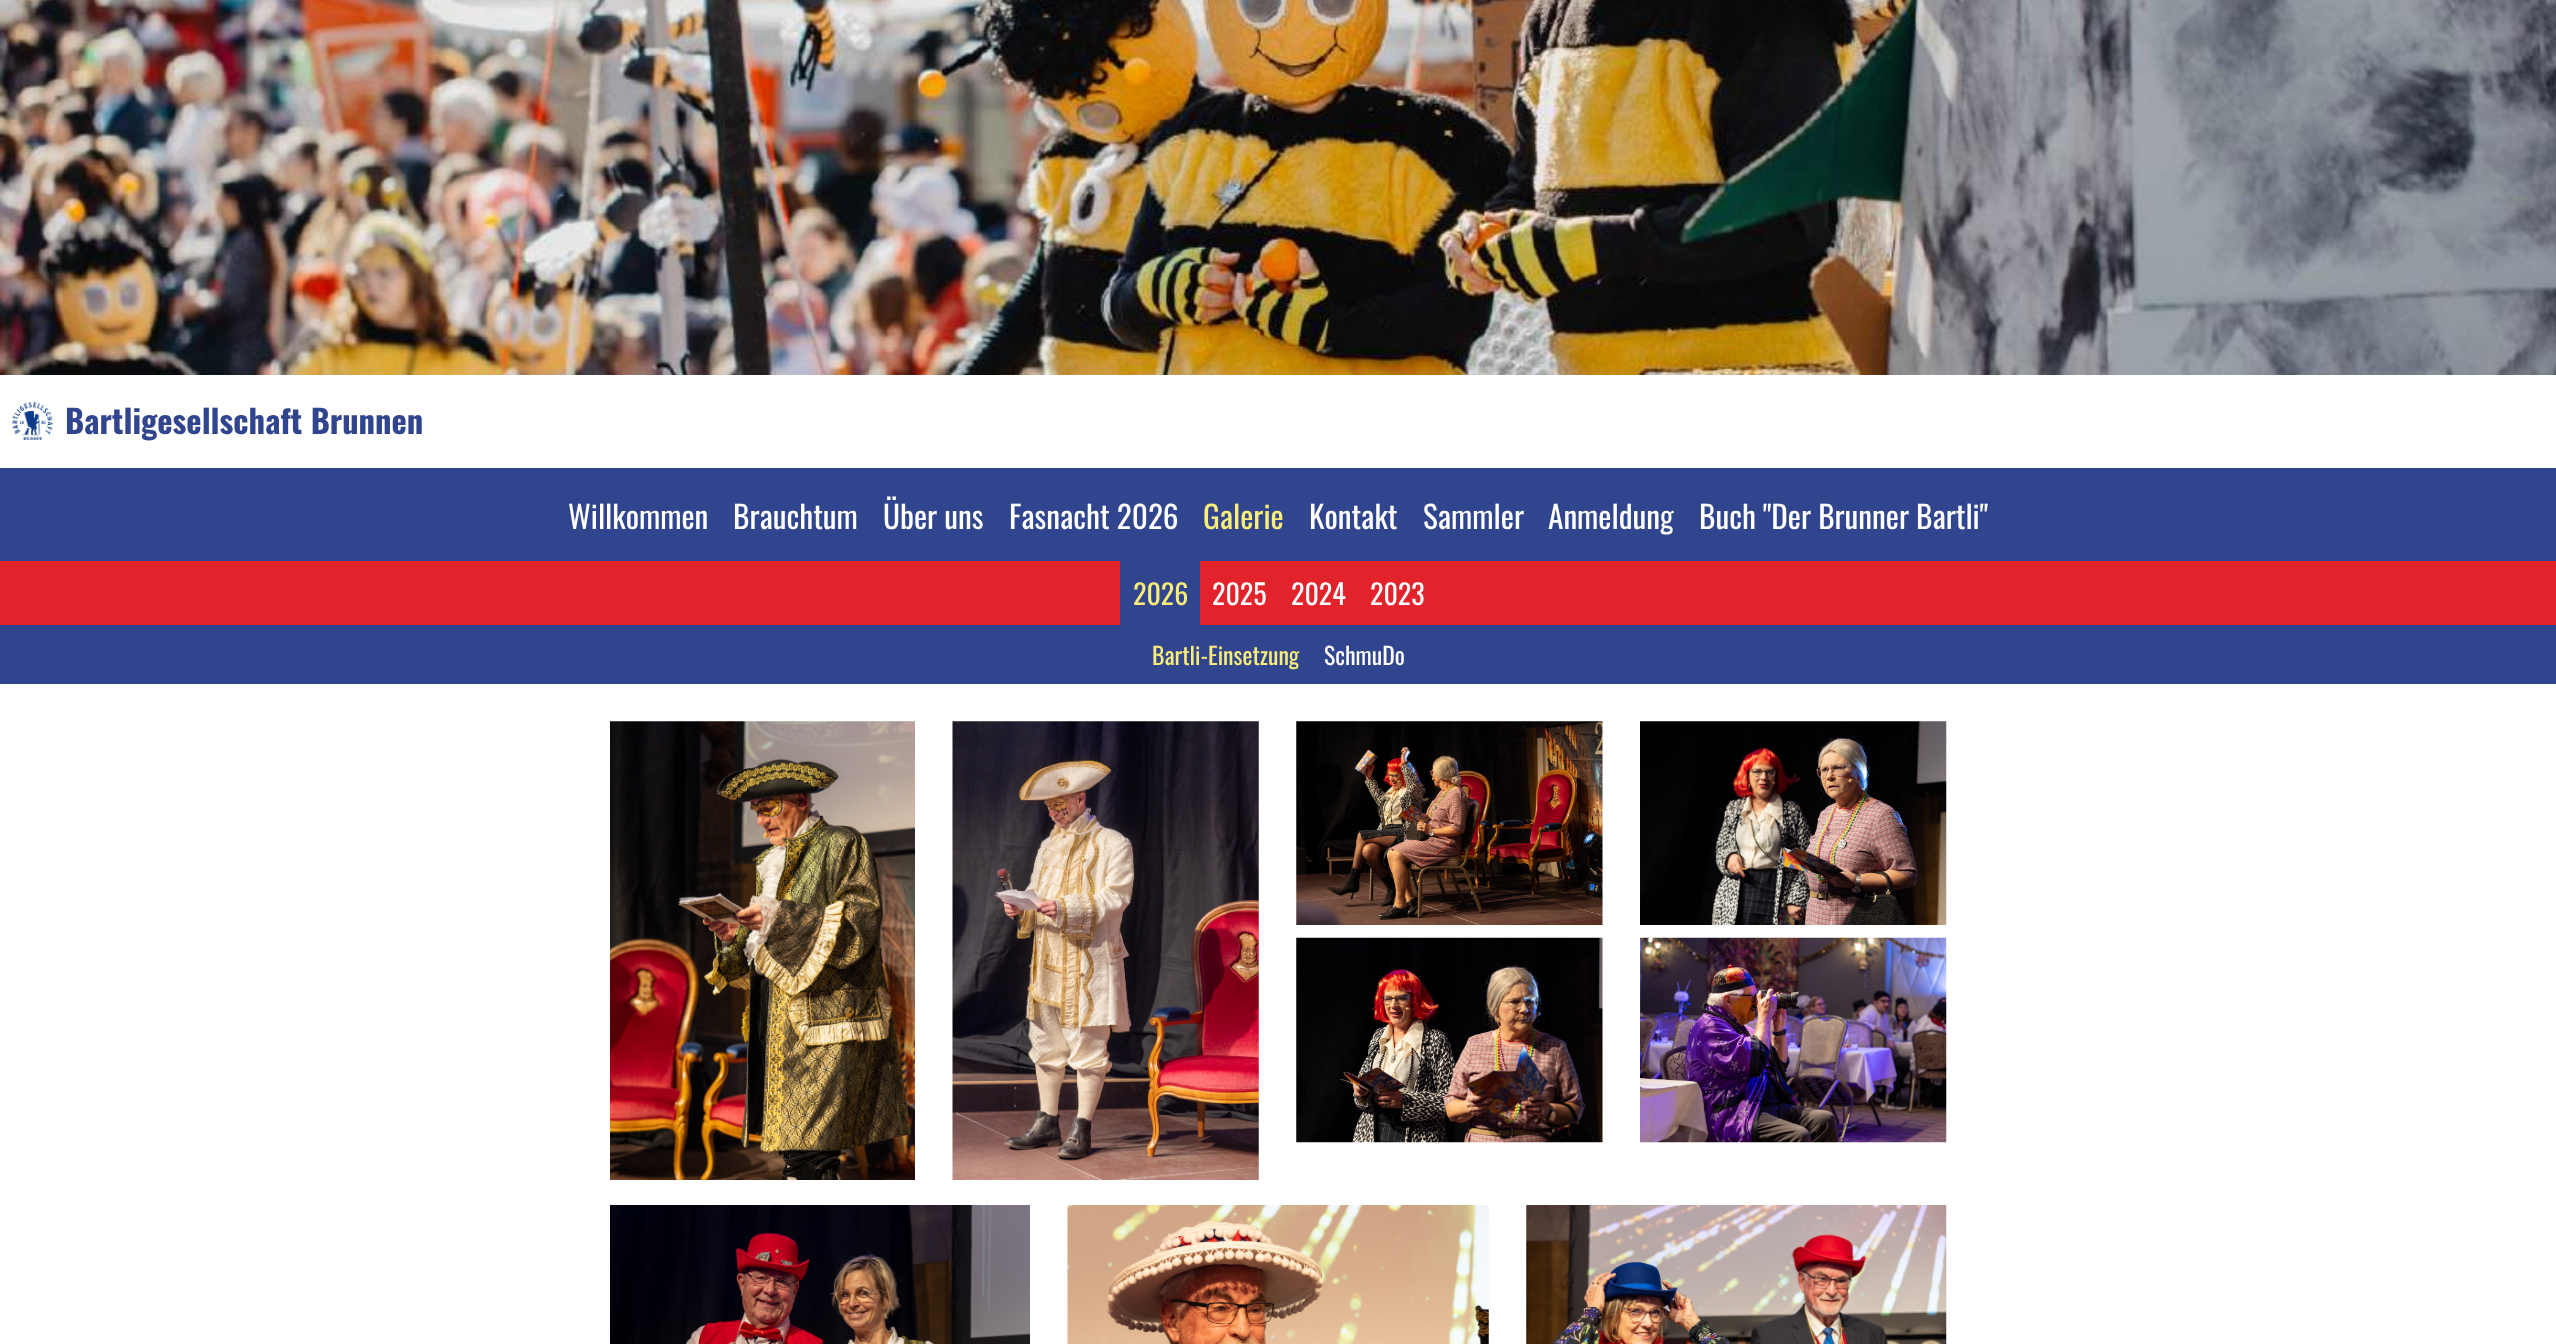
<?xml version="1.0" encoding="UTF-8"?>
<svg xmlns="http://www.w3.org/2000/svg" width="2556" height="1344">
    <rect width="100%" height="100%" fill="#FFFFFF"/>
    <image x="0" y="0" width="2556" height="375" href="img_01.png"/>
    <image x="12" y="402" width="41" height="38" href="img_02.png"/>
    <text x="65" y="434" font-family="Oswald" font-size="32.5" font-weight="700" fill="#30458D">Bartligesellschaft Brunnen</text>
    <rect x="0" y="468" width="2556" height="93" fill="#30458D"/>
    <text x="568" y="529" font-family="Oswald" font-size="31.25" fill="#FFFFFF">Willkommen</text>
    <text x="733" y="529" font-family="Oswald" font-size="31.25" fill="#FFFFFF">Brauchtum</text>
    <text x="883" y="529" font-family="Oswald" font-size="31.25" fill="#FFFFFF">Über uns</text>
    <text x="1009" y="529" font-family="Oswald" font-size="31.25" fill="#FFFFFF">Fasnacht 2026</text>
    <text x="1203" y="529" font-family="Oswald" font-size="31.25" fill="#F9EE79">Galerie</text>
    <text x="1309" y="529" font-family="Oswald" font-size="31.25" fill="#FFFFFF">Kontakt</text>
    <text x="1423" y="529" font-family="Oswald" font-size="31.25" fill="#FFFFFF">Sammler</text>
    <text x="1548" y="529" font-family="Oswald" font-size="31.25" fill="#FFFFFF">Anmeldung</text>
    <text x="1699" y="529" font-family="Oswald" font-size="31.25" fill="#FFFFFF">Buch "Der Brunner Bartli"</text>
    <rect x="0" y="561" width="2556" height="64" fill="#E3232B"/>
    <rect x="1120" y="561" width="80" height="64" fill="#30458D"/>
    <text x="1133" y="605" font-family="Oswald" font-size="28" fill="#F9EE79">2026</text>
    <text x="1212" y="605" font-family="Oswald" font-size="28" fill="#FFFFFF">2025</text>
    <text x="1291" y="605" font-family="Oswald" font-size="28" fill="#FFFFFF">2024</text>
    <text x="1370" y="605" font-family="Oswald" font-size="28" fill="#FFFFFF">2023</text>
    <rect x="0" y="625" width="2556" height="59" fill="#30458D"/>
    <text x="1152" y="665" font-family="Oswald" font-size="23.75" fill="#F9EE79">Bartli-Einsetzung</text>
    <text x="1324" y="665" font-family="Oswald" font-size="23.75" fill="#FFFFFF">SchmuDo</text>
    <image x="610" y="721" width="305" height="459" href="img_03.png"/>
    <image x="952" y="721" width="307" height="459" href="img_04.png"/>
    <image x="1296" y="721" width="307" height="204" href="img_05.png"/>
    <image x="1296" y="937" width="307" height="206" href="img_06.png"/>
    <image x="1640" y="721" width="307" height="204" href="img_07.png"/>
    <image x="1640" y="937" width="307" height="206" href="img_08.png"/>
    <image x="610" y="1205" width="420" height="139" href="img_09.png"/>
    <image x="1067" y="1205" width="422" height="139" href="img_10.png"/>
    <image x="1526" y="1205" width="421" height="139" href="img_11.png"/>
</svg>
